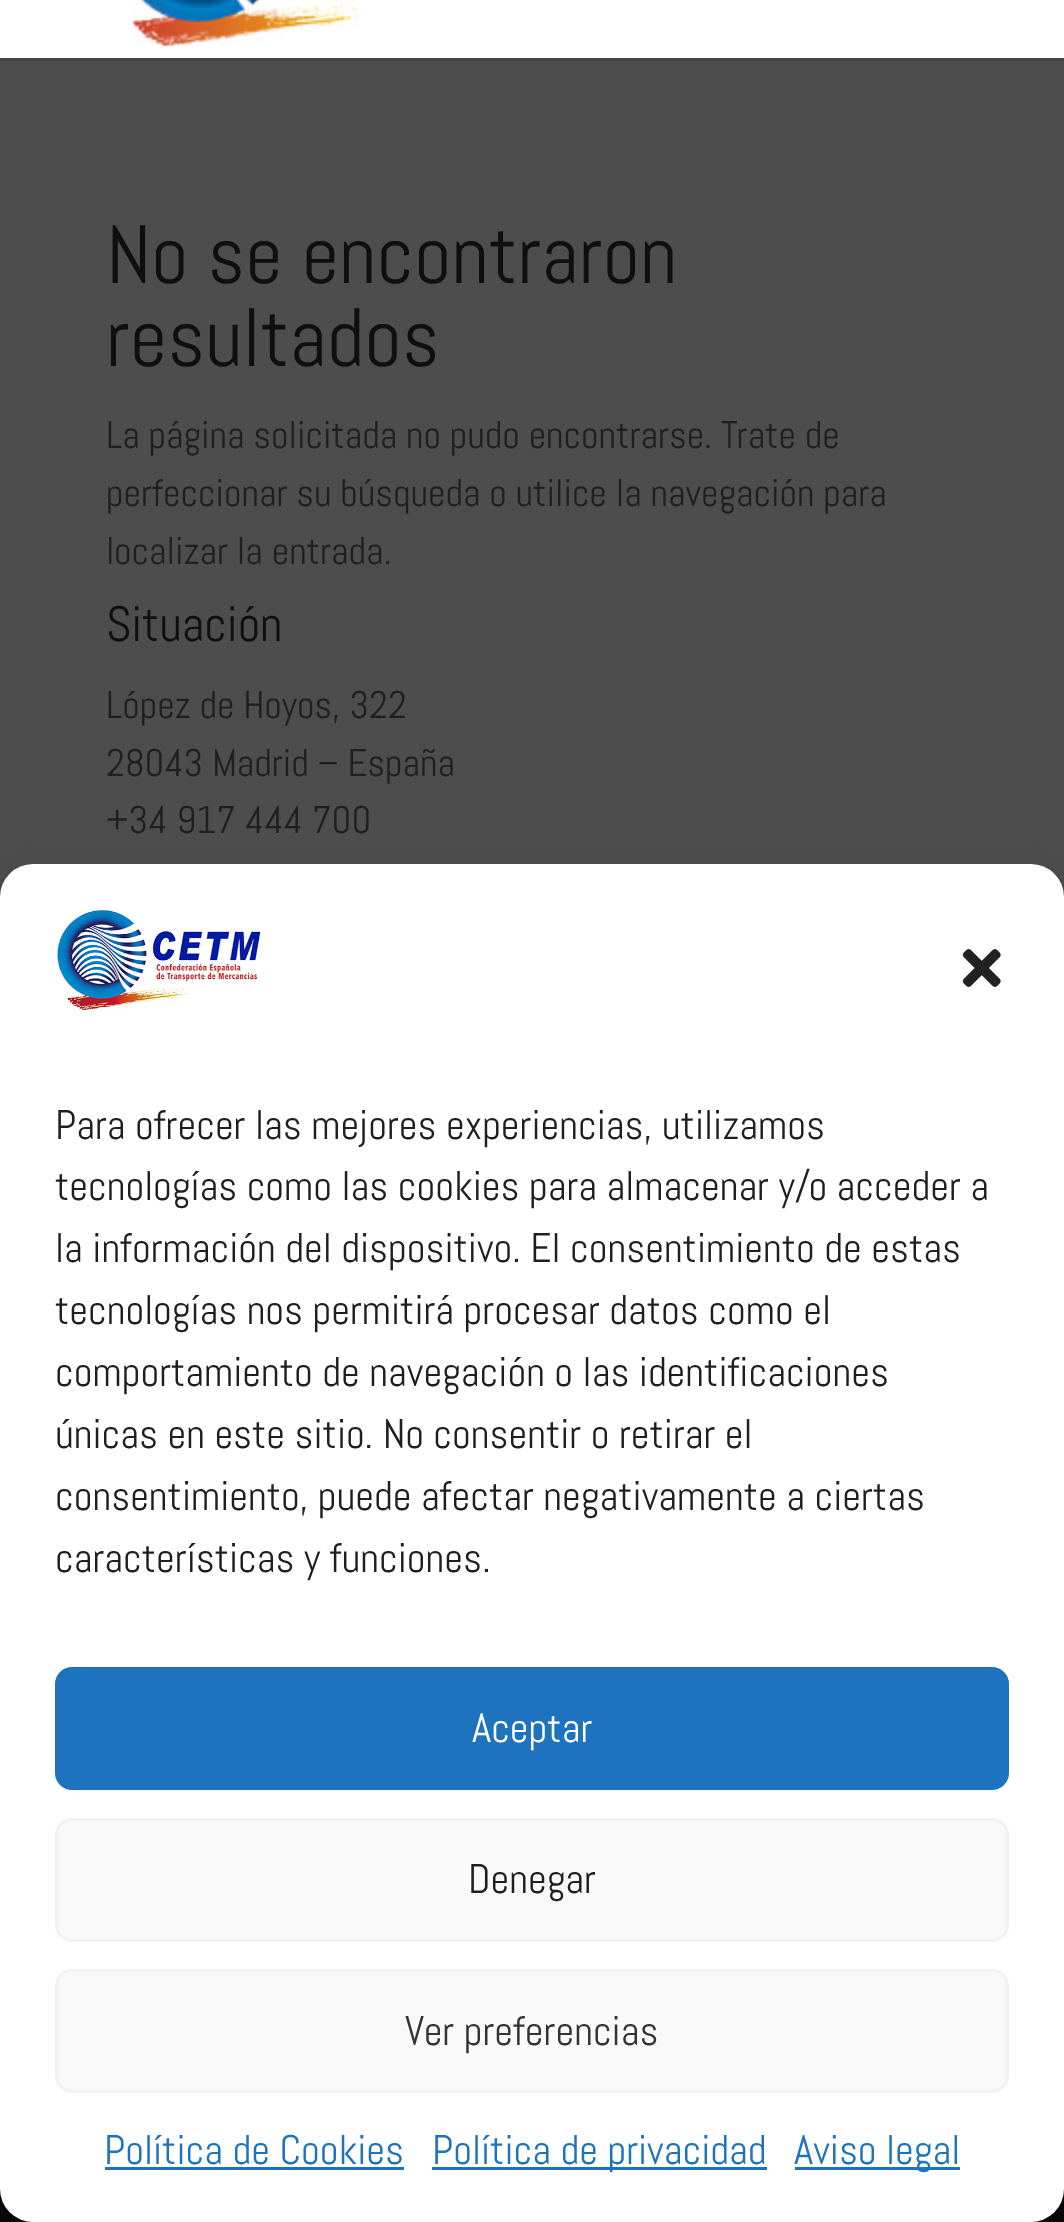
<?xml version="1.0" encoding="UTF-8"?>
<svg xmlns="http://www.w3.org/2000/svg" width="1064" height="2222">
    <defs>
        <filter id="blur1" x="-50%" y="-200%" width="200%" height="500%"><feGaussianBlur stdDeviation="8"/></filter>
        <filter id="blur2" x="-50%" y="-200%" width="200%" height="500%"><feGaussianBlur stdDeviation="27.5"/></filter>
        <filter id="blur3" x="-50%" y="-200%" width="200%" height="500%"><feGaussianBlur stdDeviation="7"/></filter>
    </defs>
    <rect width="100%" height="100%" fill="#4D4D4D"/>
    <rect x="0" y="58" width="1064" height="3" fill="#454545"/>
    <rect x="0" y="0" width="1064" height="58" fill="#FFFFFF"/>
    <image x="131" y="0" width="229" height="47" href="img_01.png"/>
    <text font-family="Abel" font-size="82.5" fill="#0F0F0F">
        <tspan x="106" y="283">No se encontraron</tspan>
        <tspan x="106" y="366">resultados</tspan>
    </text>
    <text font-family="Abel" font-size="38.5" fill="#1F1F1F">
        <tspan x="106" y="448">La página solicitada no pudo encontrarse. Trate de</tspan>
        <tspan x="106" y="506">perfeccionar su búsqueda o utilice la navegación para</tspan>
        <tspan x="106" y="564">localizar la entrada.</tspan>
    </text>
    <text x="106" y="641" font-family="Abel" font-size="49.5" fill="#0F0F0F">Situación</text>
    <text font-family="Abel" font-size="38.5" fill="#1F1F1F">
        <tspan x="106" y="718">López de Hoyos, 322</tspan>
        <tspan x="106" y="776">28043 Madrid – España</tspan>
        <tspan x="106" y="833">+34 917 444 700</tspan>
    </text>
    <rect x="0" y="2189" width="1064" height="33" fill="#0A0A0A"/>
    <rect x="0" y="880" width="1064" height="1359" rx="33" fill="#000000" fill-opacity="0.23" filter="url(#blur1)"/>
    <rect x="0" y="891" width="1064" height="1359" rx="33" fill="#000000" fill-opacity="0.19" filter="url(#blur2)"/>
    <rect x="872" y="2019" width="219" height="165" rx="6" fill="#262626" filter="url(#blur3)"/>
    <rect x="0" y="864" width="1064" height="1358" rx="33" fill="#FFFFFF"/>
    <image x="55" y="909" width="207" height="102" href="img_02.png"/>
    <image x="962" y="949" width="39" height="38" href="img_03.png"/>
    <text font-family="Abel" font-size="41.25" fill="#1F1F1F">
        <tspan x="55" y="1139">Para ofrecer las mejores experiencias, utilizamos</tspan>
        <tspan x="55" y="1200">tecnologías como las cookies para almacenar y/o acceder a</tspan>
        <tspan x="55" y="1262">la información del dispositivo. El consentimiento de estas</tspan>
        <tspan x="55" y="1324">tecnologías nos permitirá procesar datos como el</tspan>
        <tspan x="55" y="1386">comportamiento de navegación o las identificaciones</tspan>
        <tspan x="55" y="1448">únicas en este sitio. No consentir o retirar el</tspan>
        <tspan x="55" y="1510">consentimiento, puede afectar negativamente a ciertas</tspan>
        <tspan x="55" y="1572">características y funciones.</tspan>
    </text>
    <rect x="56.5" y="1668.5" width="951" height="120" rx="15.5" fill="#1E73BE" stroke="#1E73BE" stroke-width="3"/>
    <text x="472" y="1742" font-family="Abel" font-size="41.25" fill="#FFFFFF">Aceptar</text>
    <rect x="56.5" y="1819.5" width="951" height="121" rx="15.5" fill="#F9F9F9" stroke="#F2F2F2" stroke-width="3"/>
    <text x="468" y="1893" font-family="Abel" font-size="41.25" fill="#1F1F1F">Denegar</text>
    <rect x="56.5" y="1970.5" width="951" height="121" rx="15.5" fill="#F9F9F9" stroke="#F2F2F2" stroke-width="3"/>
    <text x="405" y="2045" font-family="Abel" font-size="41.25" fill="#333333">Ver preferencias</text>
    <text x="104" y="2164" font-family="Abel" font-size="41.25" fill="#1E73BE">Política de Cookies</text>
    <rect x="105" y="2167" width="299" height="3" fill="#1E73BE"/>
    <rect x="432" y="2167" width="335" height="3" fill="#1E73BE"/>
    <text x="432" y="2164" font-family="Abel" font-size="41.25" fill="#1E73BE">Política de privacidad</text>
    <rect x="795" y="2167" width="165" height="3" fill="#1E73BE"/>
    <text x="794" y="2164" font-family="Abel" font-size="41.25" fill="#1E73BE">Aviso legal</text>
</svg>
